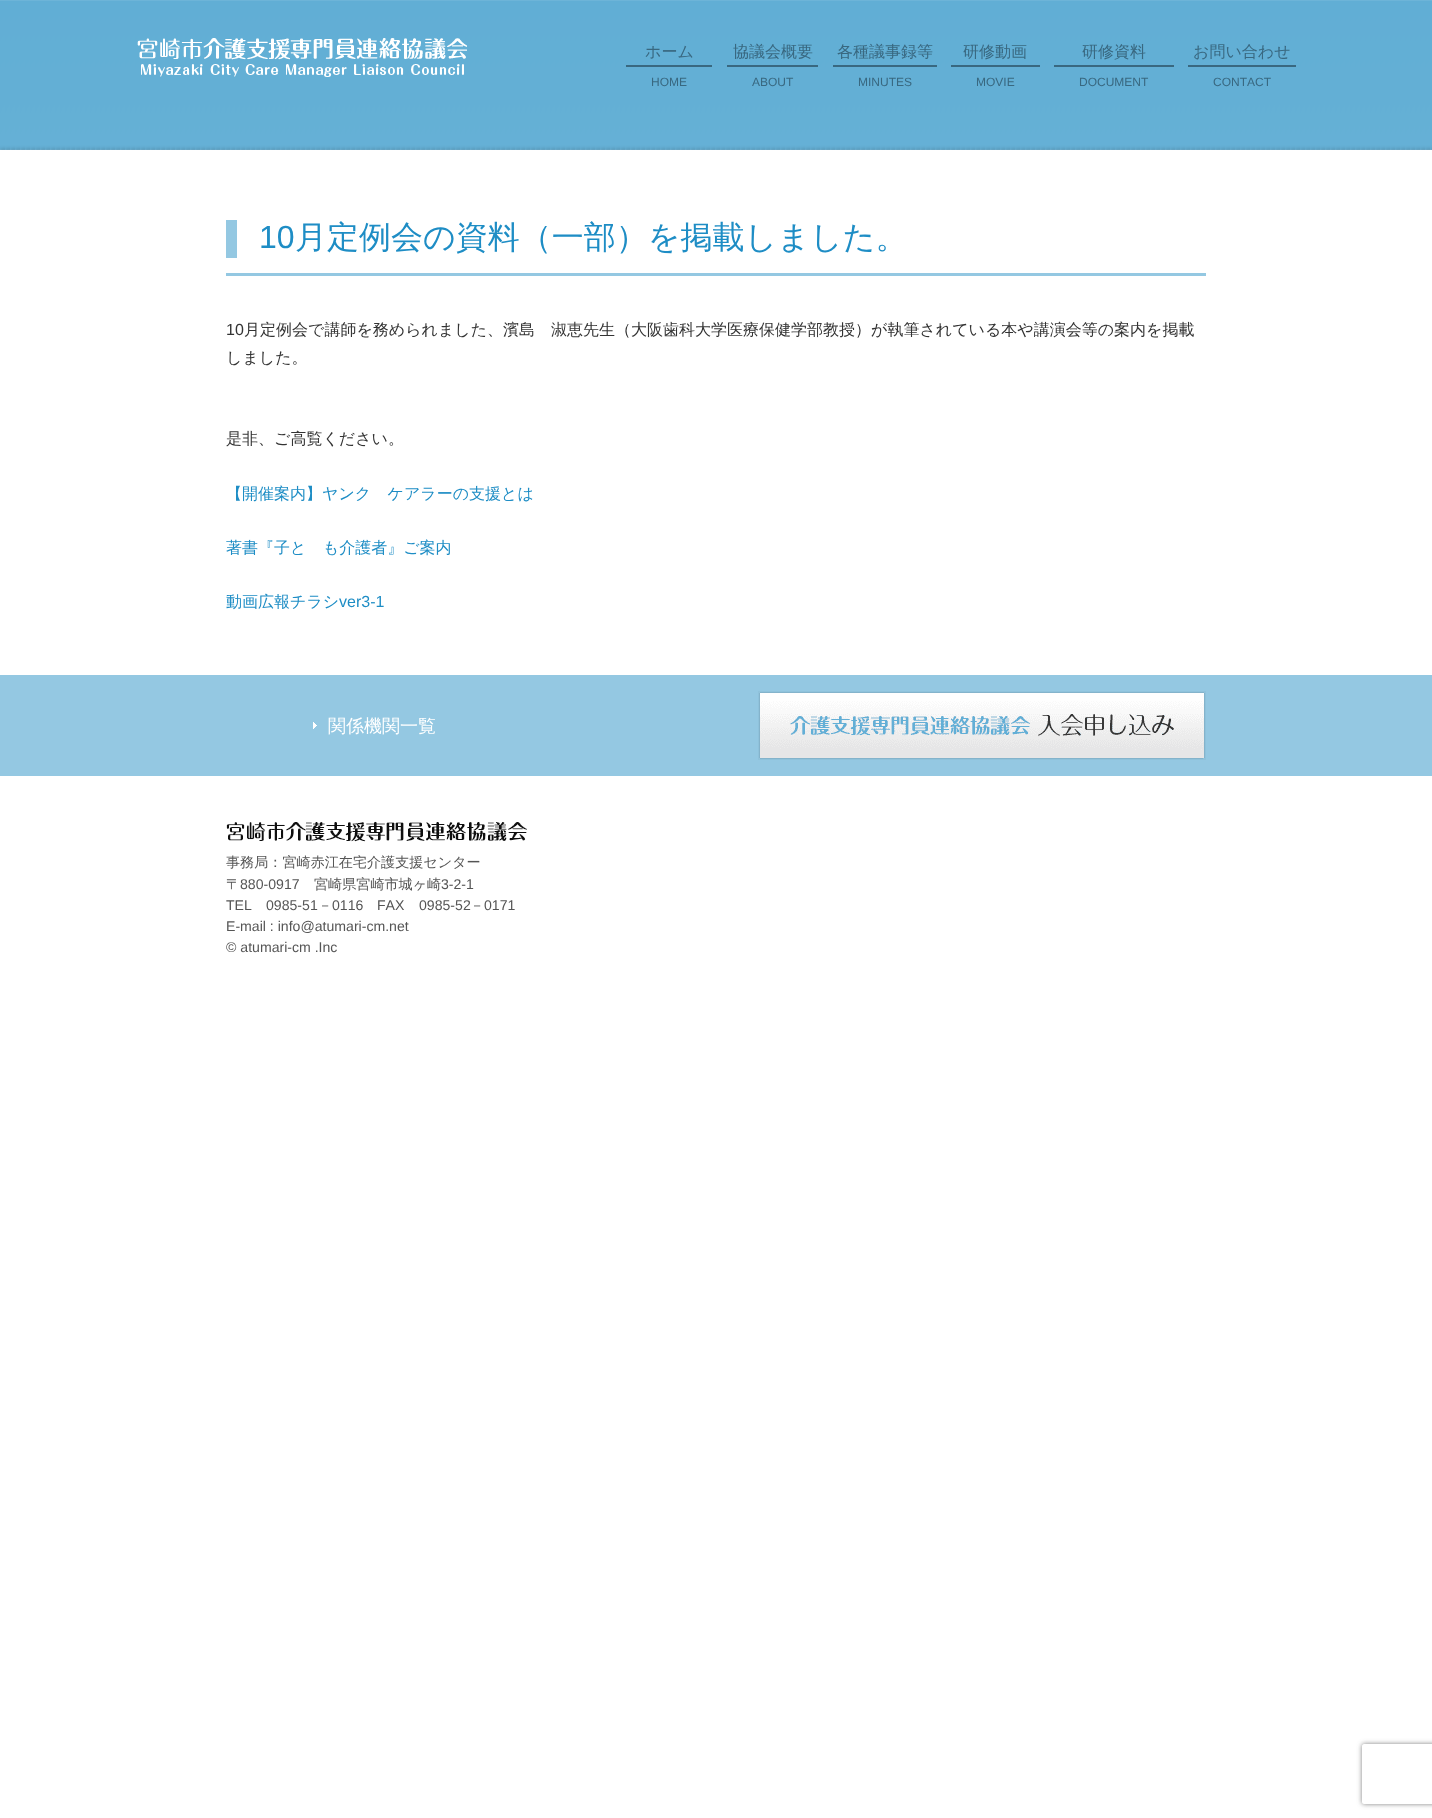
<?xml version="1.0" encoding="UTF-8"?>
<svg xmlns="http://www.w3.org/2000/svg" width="1432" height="1818">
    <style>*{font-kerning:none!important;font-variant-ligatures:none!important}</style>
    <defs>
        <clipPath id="clip1"><path d="M 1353 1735 H 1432 V 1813 H 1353 Z M 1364 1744 H 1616 C 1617 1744 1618 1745 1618 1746 V 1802 C 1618 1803 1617 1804 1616 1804 H 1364 C 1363 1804 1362 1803 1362 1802 V 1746 C 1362 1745 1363 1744 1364 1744 Z" clip-rule="evenodd"/></clipPath>
        <filter id="blur1" x="-50%" y="-200%" width="200%" height="500%"><feGaussianBlur stdDeviation="2.5"/></filter>
    </defs>
    <rect width="100%" height="100%" fill="#FFFFFF"/>
    <image x="0" y="0" width="1432" height="150" href="img_01.png"/>
    <image x="137" y="38" width="330" height="39" href="img_02.png"/>
    <text x="645" y="57" font-family="WenQuanYi Zen Hei" font-size="16" font-weight="500" fill="#396880">ホーム</text>
    <rect x="626" y="65" width="86" height="2" fill="#396880"/>
    <text x="651" y="86" font-family="Liberation Sans" font-size="12" fill="#396880">HOME</text>
    <text x="733" y="57" font-family="WenQuanYi Zen Hei" font-size="16" font-weight="500" fill="#396880">協議会概要</text>
    <rect x="727" y="65" width="91" height="2" fill="#396880"/>
    <text x="752" y="86" font-family="Liberation Sans" font-size="12" fill="#396880">ABOUT</text>
    <text x="837" y="57" font-family="WenQuanYi Zen Hei" font-size="16" font-weight="500" fill="#396880">各種議事録等</text>
    <rect x="833" y="65" width="104" height="2" fill="#396880"/>
    <text x="858" y="86" font-family="Liberation Sans" font-size="12" fill="#396880">MINUTES</text>
    <text x="963" y="57" font-family="WenQuanYi Zen Hei" font-size="16" font-weight="500" fill="#396880">研修動画</text>
    <rect x="951" y="65" width="89" height="2" fill="#396880"/>
    <text x="976" y="86" font-family="Liberation Sans" font-size="12" fill="#396880">MOVIE</text>
    <text x="1082" y="57" font-family="WenQuanYi Zen Hei" font-size="16" font-weight="500" fill="#396880">研修資料</text>
    <rect x="1054" y="65" width="120" height="2" fill="#396880"/>
    <text x="1079" y="86" font-family="Liberation Sans" font-size="12" fill="#396880">DOCUMENT</text>
    <text x="1193" y="57" font-family="WenQuanYi Zen Hei" font-size="16" font-weight="500" fill="#396880">お問い合わせ</text>
    <rect x="1188" y="65" width="108" height="2" fill="#396880"/>
    <text x="1213" y="86" font-family="Liberation Sans" font-size="12" fill="#396880">CONTACT</text>
    <rect x="226" y="273" width="980" height="3" fill="#94C8E2"/>
    <rect x="226" y="220" width="11" height="38" fill="#94C8E2"/>
    <text x="259" y="248" font-family="Liberation Sans" font-size="32" fill="#1E8DC5">10</text>
    <text x="295" y="248" font-family="WenQuanYi Zen Hei" font-size="32" font-weight="500" fill="#1E8DC5">月定例会の資料（一部）を掲載しました。</text>
    <text x="226" y="335" font-family="Liberation Sans" font-size="16" fill="#333333">10</text>
    <text x="244" y="335" font-family="WenQuanYi Zen Hei" font-size="16" font-weight="500" fill="#333333">月定例会で講師を務められました、濱島　淑恵先生（大阪歯科大学医療保健学部教授）が執筆されている本や講演会等の案内を掲載</text>
    <text x="226" y="363" font-family="WenQuanYi Zen Hei" font-size="16" font-weight="500" fill="#333333">しました。</text>
    <text x="226" y="444" font-family="WenQuanYi Zen Hei" font-size="16" font-weight="500" fill="#333333">是非、ご高覧ください。</text>
    <text x="226" y="499" font-family="WenQuanYi Zen Hei" font-size="16" font-weight="500" fill="#1E8DC5">【開催案内】ヤングケアラーの支援とは</text>
    <text x="226" y="553" font-family="WenQuanYi Zen Hei" font-size="16" font-weight="500" fill="#1E8DC5">著書『子ども介護者』ご案内</text>
    <text x="226" y="607" font-family="WenQuanYi Zen Hei" font-size="16" font-weight="500" fill="#1E8DC5">動画広報チラシ</text>
    <text x="339" y="607" font-family="Liberation Sans" font-size="16" fill="#1E8DC5">ver3-1</text>
    <rect x="0" y="675" width="1432" height="101" fill="#94C8E2"/>
    <image x="313" y="722" width="4" height="7" href="img_03.png"/>
    <text x="328" y="732" font-family="WenQuanYi Zen Hei" font-size="18" font-weight="500" fill="#FFFFFF">関係機関一覧</text>
    <image x="758" y="691" width="448" height="69" href="img_04.png"/>
    <image x="226" y="821" width="301" height="21" href="img_05.png"/>
    <text font-family="WenQuanYi Zen Hei" font-size="14.1" font-weight="500" fill="#555555">
        <tspan x="226" y="867">事務局：宮崎赤江在宅介護支援センター</tspan>
        <tspan x="226" y="889">〒</tspan>
    </text>
    <text x="240" y="889" font-family="Liberation Sans" font-size="14.1" fill="#555555">880-0917</text>
    <text x="314" y="889" font-family="WenQuanYi Zen Hei" font-size="14.1" font-weight="500" fill="#555555">宮崎県宮崎市城ヶ崎</text>
    <text x="441" y="889" font-family="Liberation Sans" font-size="14.1" fill="#555555">3-2-1</text>
    <text x="226" y="910" font-family="Liberation Sans" font-size="14.1" fill="#555555">TEL</text>
    <text x="266" y="910" font-family="Liberation Sans" font-size="14.1" fill="#555555">0985-51</text>
    <text x="318" y="910" font-family="WenQuanYi Zen Hei" font-size="14.1" font-weight="500" fill="#555555">－</text>
    <text x="332" y="910" font-family="Liberation Sans" font-size="14.1" fill="#555555">0116</text>
    <text x="377" y="910" font-family="Liberation Sans" font-size="14.1" fill="#555555">FAX</text>
    <text x="419" y="910" font-family="Liberation Sans" font-size="14.1" fill="#555555">0985-52</text>
    <text x="470" y="910" font-family="WenQuanYi Zen Hei" font-size="14.1" font-weight="500" fill="#555555">－</text>
    <text x="484" y="910" font-family="Liberation Sans" font-size="14.1" fill="#555555">0171</text>
    <text font-family="Liberation Sans" font-size="14.1" fill="#555555">
        <tspan x="226" y="931">E-mail : info@atumari-cm.net</tspan>
        <tspan x="226" y="952">© atumari-cm .Inc</tspan>
    </text>
    <g clip-path="url(#clip1)">
        <rect x="1362" y="1744" width="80" height="60" rx="2" fill="#808080" filter="url(#blur1)"/>
    </g>
</svg>
